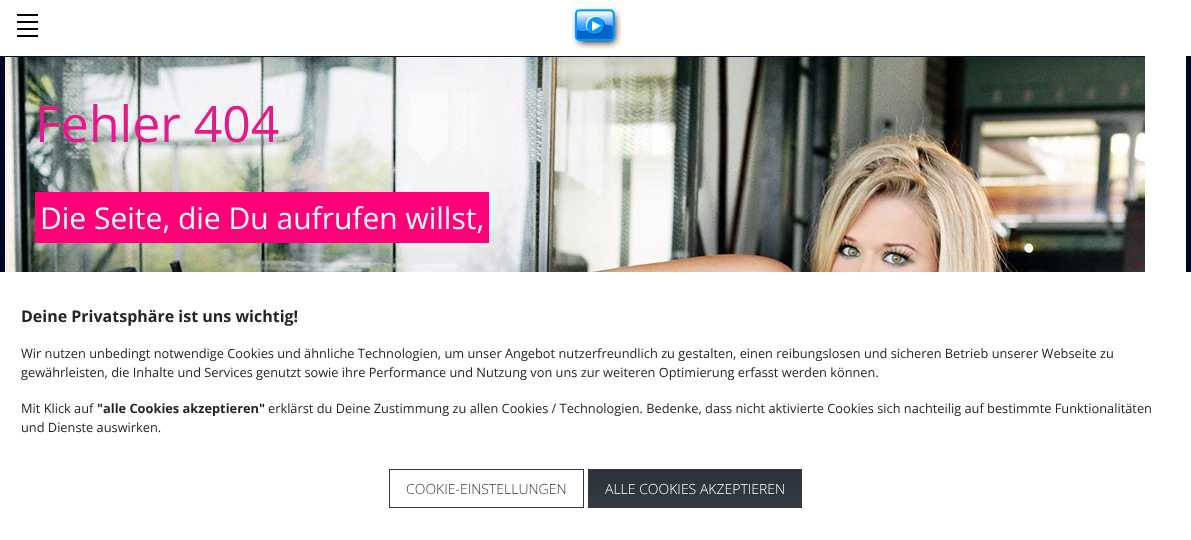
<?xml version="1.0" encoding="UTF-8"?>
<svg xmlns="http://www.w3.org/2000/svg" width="1191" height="540">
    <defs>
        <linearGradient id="g1" gradientUnits="userSpaceOnUse" x1="695" y1="470" x2="695" y2="507"><stop offset="0" stop-color="#2C323C"/><stop offset="1" stop-color="#343A40"/></linearGradient>
    </defs>
    <rect width="100%" height="100%" fill="#000526"/>
    <rect x="0" y="0" width="1191" height="56" fill="#FFFFFF"/>
    <rect x="17" y="14" width="21" height="2" fill="#000000"/>
    <rect x="17" y="21" width="21" height="2" fill="#000000"/>
    <rect x="17" y="28" width="21" height="2" fill="#000000"/>
    <rect x="17" y="35" width="21" height="2" fill="#000000"/>
    <image x="572" y="7" width="50" height="42" href="img_01.png"/>
    <rect x="1145" y="56" width="41" height="216" fill="#FFFFFF"/>
    <image x="5" y="56" width="1140" height="216" href="img_02.png"/>
    <text x="35" y="142" font-family="Open Sans" font-size="50" fill="#E71889">Fehler 404</text>
    <rect x="35" y="192" width="454" height="51" fill="#FF0079"/>
    <text x="40" y="229" font-family="Open Sans" font-size="30" fill="#FFFFFF">Die Seite, die Du aufrufen willst,</text>
    <rect x="0" y="272" width="1191" height="268" fill="#FFFFFF"/>
    <text x="21" y="322" font-family="Open Sans" font-size="16" font-weight="700" fill="#212529">Deine Privatsphäre ist uns wichtig!</text>
    <text font-family="Open Sans" font-size="12.8" fill="#212529">
        <tspan x="21" y="358">Wir nutzen unbedingt notwendige Cookies und ähnliche Technologien, um unser Angebot nutzerfreundlich zu gestalten, einen reibungslosen und sicheren Betrieb unserer Webseite zu</tspan>
        <tspan x="21" y="377">gewährleisten, die Inhalte und Services genutzt sowie ihre Performance und Nutzung von uns zur weiteren Optimierung erfasst werden können.</tspan>
    </text>
    <text x="21" y="413" font-family="Open Sans" font-size="12.8" fill="#212529">Mit Klick auf</text>
    <text x="97" y="413" font-family="Open Sans" font-size="12.8" font-weight="700" fill="#212529">"alle Cookies akzeptieren"</text>
    <text x="268" y="413" font-family="Open Sans" font-size="12.8" fill="#212529">erklärst du Deine Zustimmung zu allen Cookies / Technologien. Bedenke, dass nicht aktivierte Cookies sich nachteilig auf bestimmte Funktionalitäten</text>
    <text x="21" y="432" font-family="Open Sans" font-size="12.8" fill="#212529">und Dienste auswirken.</text>
    <rect x="389.5" y="469.5" width="194" height="38" fill="none" stroke="#343A40"/>
    <text x="406" y="494" font-family="Open Sans" font-size="14" font-weight="300" fill="#343A40">COOKIE-EINSTELLUNGEN</text>
    <rect x="589" y="470" width="212" height="37" fill="url(#g1)"/>
    <rect x="588.5" y="469.5" width="213" height="38" fill="none" stroke="#343A40"/>
    <text x="605" y="494" font-family="Open Sans" font-size="14" font-weight="300" fill="#FFFFFF">ALLE COOKIES AKZEPTIEREN</text>
</svg>
